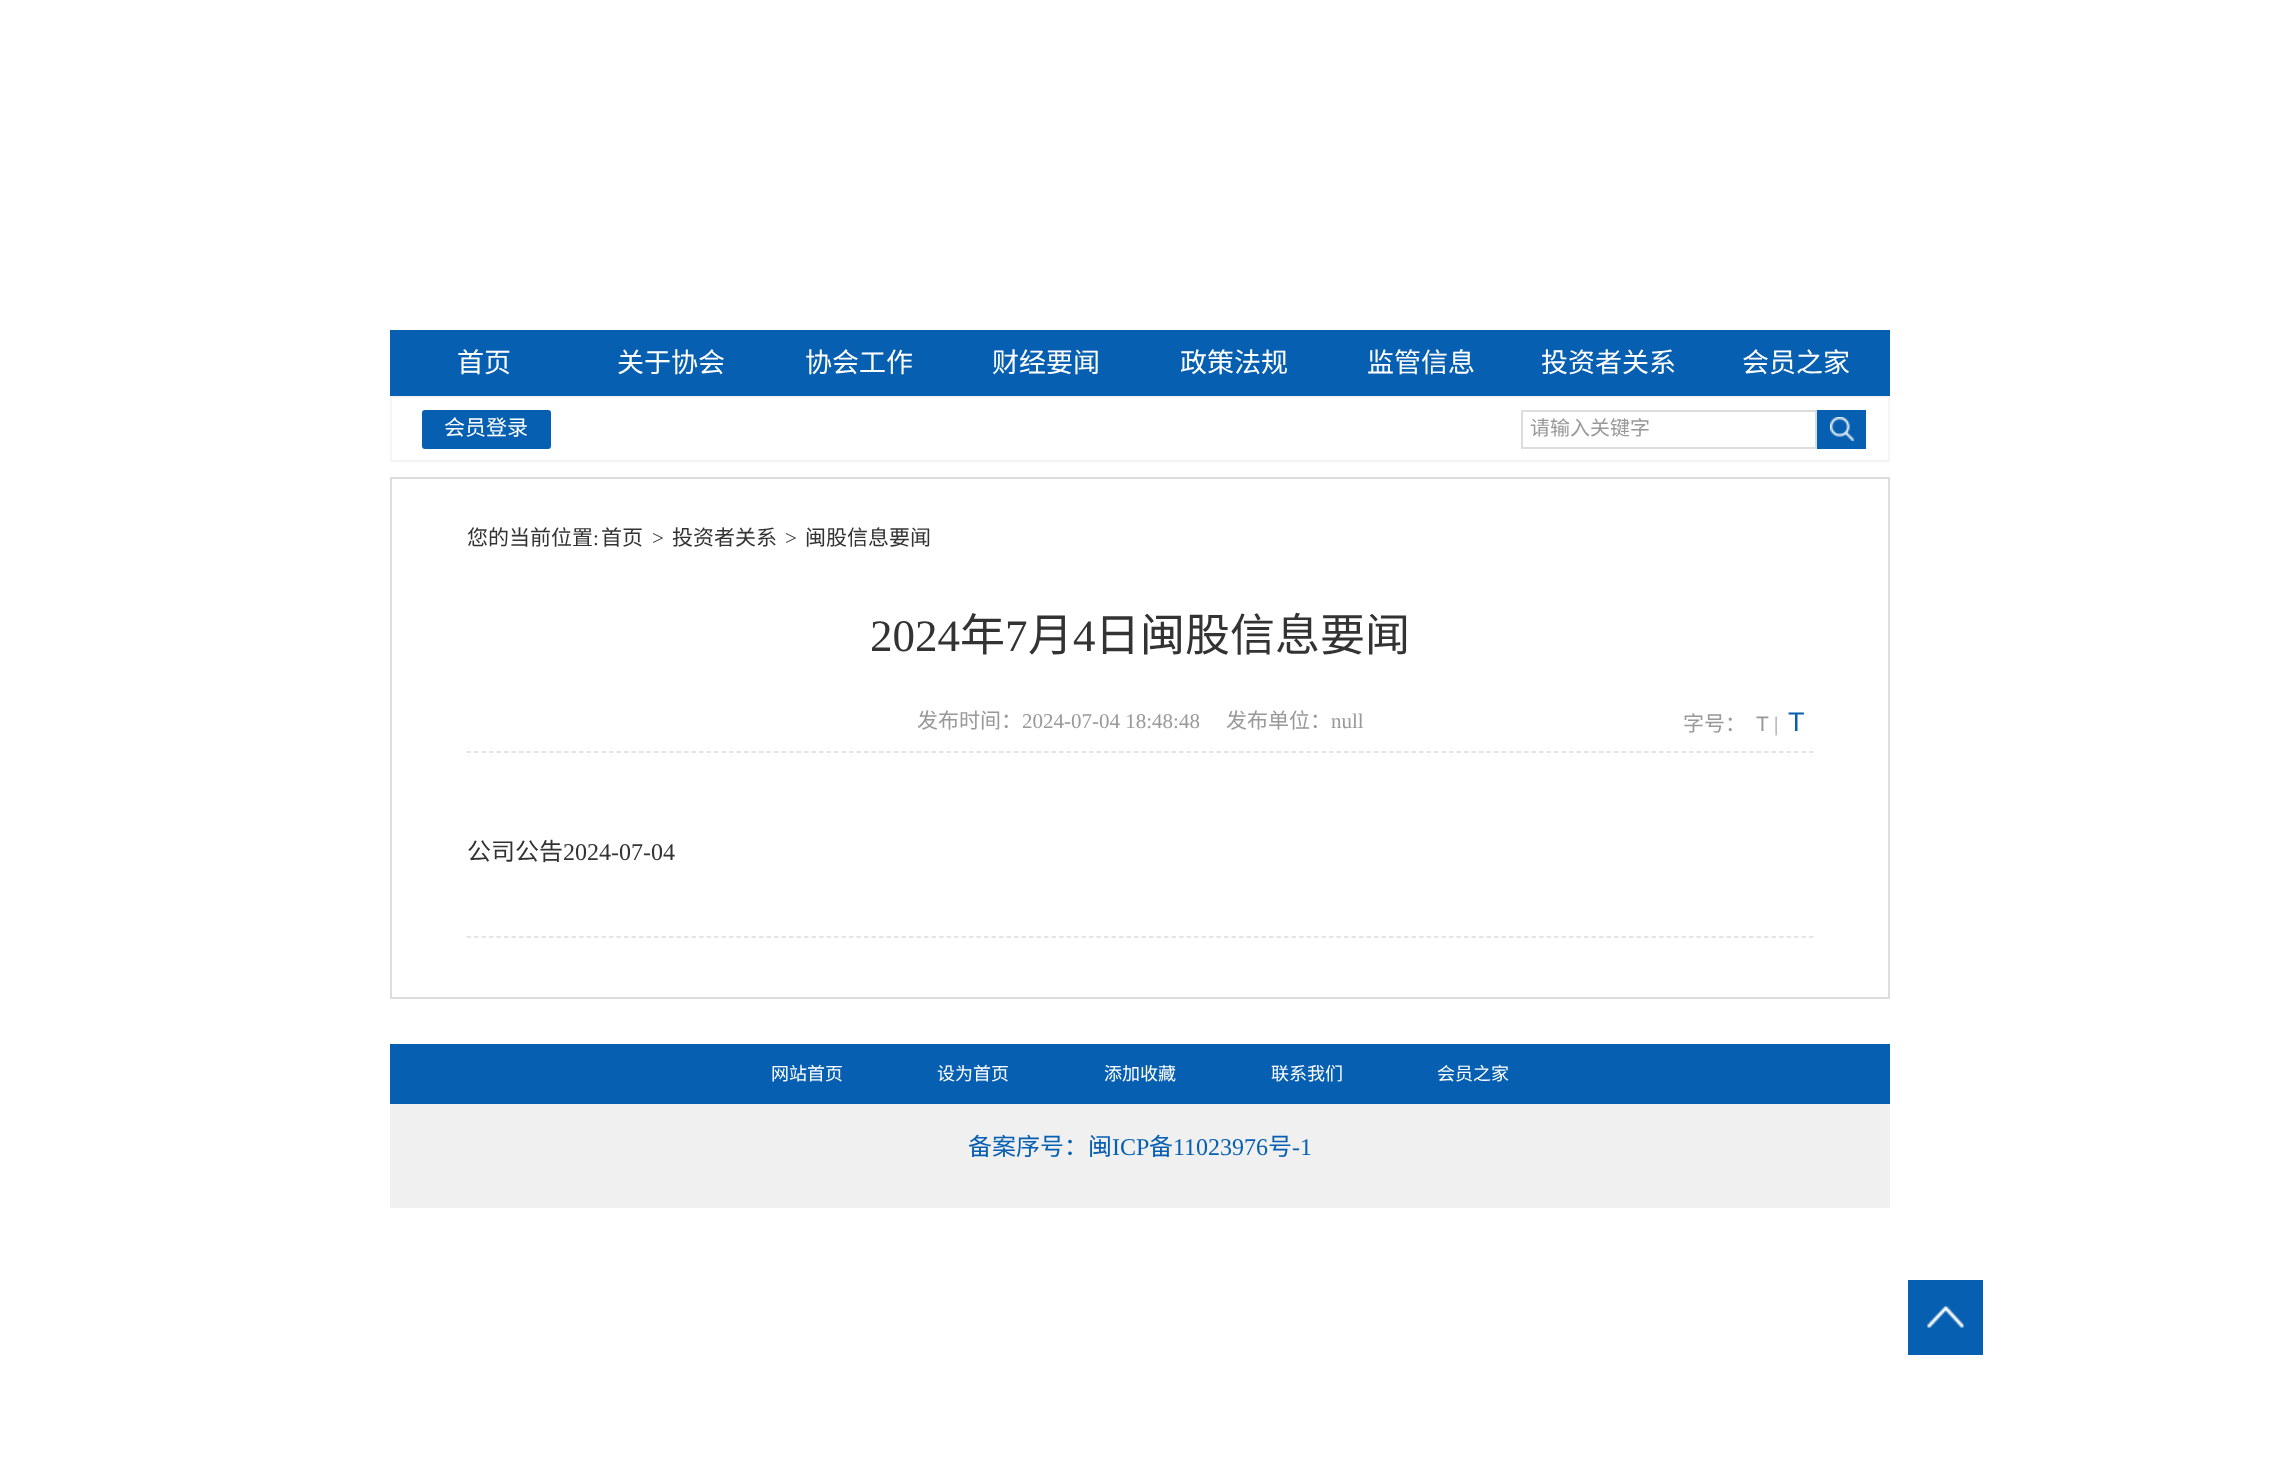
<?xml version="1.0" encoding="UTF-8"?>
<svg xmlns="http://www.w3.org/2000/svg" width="2280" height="1482">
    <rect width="100%" height="100%" fill="#FFFFFF"/>
    <rect x="390" y="330" width="1500" height="66" fill="#065FB0"/>
    <text x="457" y="372" font-family="Noto Sans CJK SC" font-size="27" fill="#FFFFFF">首页</text>
    <text x="617" y="372" font-family="Noto Sans CJK SC" font-size="27" fill="#FFFFFF">关于协会</text>
    <text x="805" y="372" font-family="Noto Sans CJK SC" font-size="27" fill="#FFFFFF">协会工作</text>
    <text x="992" y="372" font-family="Noto Sans CJK SC" font-size="27" fill="#FFFFFF">财经要闻</text>
    <text x="1180" y="372" font-family="Noto Sans CJK SC" font-size="27" fill="#FFFFFF">政策法规</text>
    <text x="1367" y="372" font-family="Noto Sans CJK SC" font-size="27" fill="#FFFFFF">监管信息</text>
    <text x="1541" y="372" font-family="Noto Sans CJK SC" font-size="27" fill="#FFFFFF">投资者关系</text>
    <text x="1742" y="372" font-family="Noto Sans CJK SC" font-size="27" fill="#FFFFFF">会员之家</text>
    <rect x="391" y="397" width="1498" height="64" fill="none" stroke="#F5F3F3" stroke-width="2"/>
    <rect x="422" y="410" width="129" height="39" rx="3" fill="#065FB0"/>
    <text x="444" y="435" font-family="Noto Sans CJK SC" font-size="21" fill="#FFFFFF">会员登录</text>
    <rect x="1522" y="411" width="294" height="37" fill="none" stroke="#DDDDDD" stroke-width="2"/>
    <text x="1530" y="435" font-family="Noto Sans CJK SC" font-size="20" fill="#999999">请输入关键字</text>
    <rect x="1817" y="410" width="49" height="39" fill="#065FB0"/>
    <image x="1830" y="417" width="24" height="24" href="img_01.png"/>
    <rect x="391" y="478" width="1498" height="520" fill="none" stroke="#DDDDDD" stroke-width="2"/>
    <text x="467" y="545" font-family="Noto Sans CJK SC" font-size="21" fill="#333333">您的当前位置</text>
    <text x="593" y="545" font-family="Liberation Serif" font-size="21" fill="#333333">:</text>
    <text x="601" y="545" font-family="Noto Sans CJK SC" font-size="21" fill="#333333">首页</text>
    <text x="652" y="545" font-family="Liberation Serif" font-size="21" fill="#333333">&gt;</text>
    <text x="672" y="545" font-family="Noto Sans CJK SC" font-size="21" fill="#333333">投资者关系</text>
    <text x="785" y="545" font-family="Liberation Serif" font-size="21" fill="#333333">&gt;</text>
    <text x="805" y="545" font-family="Noto Sans CJK SC" font-size="21" fill="#333333">闽股信息要闻</text>
    <text x="870" y="651" font-family="Liberation Serif" font-size="45" fill="#333333">2024</text>
    <text x="960" y="651" font-family="Noto Sans CJK SC" font-size="45" fill="#333333">年</text>
    <text x="1005" y="651" font-family="Liberation Serif" font-size="45" fill="#333333">7</text>
    <text x="1028" y="651" font-family="Noto Sans CJK SC" font-size="45" fill="#333333">月</text>
    <text x="1073" y="651" font-family="Liberation Serif" font-size="45" fill="#333333">4</text>
    <text x="1095" y="651" font-family="Noto Sans CJK SC" font-size="45" fill="#333333">日闽股信息要闻</text>
    <path d="M 466.5 752 H 1813.5" fill="none" stroke="#DDDDDD" stroke-width="1.5" stroke-dasharray="4.5 3"/>
    <text x="917" y="728" font-family="Noto Sans CJK SC" font-size="21" fill="#999999">发布时间：</text>
    <text x="1022" y="728" font-family="Liberation Serif" font-size="21" fill="#999999">2024-07-04 18:48:48</text>
    <text x="1226" y="728" font-family="Noto Sans CJK SC" font-size="21" fill="#999999">发布单位：</text>
    <text x="1331" y="728" font-family="Liberation Serif" font-size="21" fill="#999999">null</text>
    <text x="1683" y="731" font-family="Noto Sans CJK SC" font-size="21" fill="#999999">字号：</text>
    <text x="1756" y="731" font-family="Liberation Sans" font-size="21" fill="#999999">T</text>
    <text x="1774" y="731" font-family="Liberation Serif" font-size="21" fill="#999999">|</text>
    <text x="1788" y="731" font-family="Liberation Sans" font-size="27" fill="#065FB0">T</text>
    <text x="467" y="860" font-family="Noto Sans CJK SC" font-size="24" fill="#333333">公司公告</text>
    <text x="563" y="860" font-family="Liberation Serif" font-size="24" fill="#333333">2024-07-04</text>
    <path d="M 466.5 937 H 1813.5" fill="none" stroke="#DDDDDD" stroke-width="1.5" stroke-dasharray="4.5 3"/>
    <rect x="390" y="1104" width="1500" height="104" fill="#F0F0F0"/>
    <rect x="390" y="1044" width="1500" height="60" fill="#065FB0"/>
    <text x="771" y="1080" font-family="Noto Sans CJK SC" font-size="18" fill="#FFFFFF">网站首页</text>
    <text x="937" y="1080" font-family="Noto Sans CJK SC" font-size="18" fill="#FFFFFF">设为首页</text>
    <text x="1104" y="1080" font-family="Noto Sans CJK SC" font-size="18" fill="#FFFFFF">添加收藏</text>
    <text x="1271" y="1080" font-family="Noto Sans CJK SC" font-size="18" fill="#FFFFFF">联系我们</text>
    <text x="1437" y="1080" font-family="Noto Sans CJK SC" font-size="18" fill="#FFFFFF">会员之家</text>
    <text x="968" y="1155" font-family="Noto Sans CJK SC" font-size="24" fill="#065FB0">备案序号：闽</text>
    <text x="1112" y="1155" font-family="Liberation Serif" font-size="24" fill="#065FB0">ICP</text>
    <text x="1149" y="1155" font-family="Noto Sans CJK SC" font-size="24" fill="#065FB0">备</text>
    <text x="1173" y="1155" font-family="Liberation Serif" font-size="24" fill="#065FB0">11023976</text>
    <text x="1268" y="1155" font-family="Noto Sans CJK SC" font-size="24" fill="#065FB0">号</text>
    <text x="1292" y="1155" font-family="Liberation Serif" font-size="24" fill="#065FB0">-1</text>
    <rect x="1908" y="1280" width="75" height="75" fill="#065FB0"/>
    <image x="1927" y="1306" width="37" height="22" href="img_02.png"/>
</svg>
